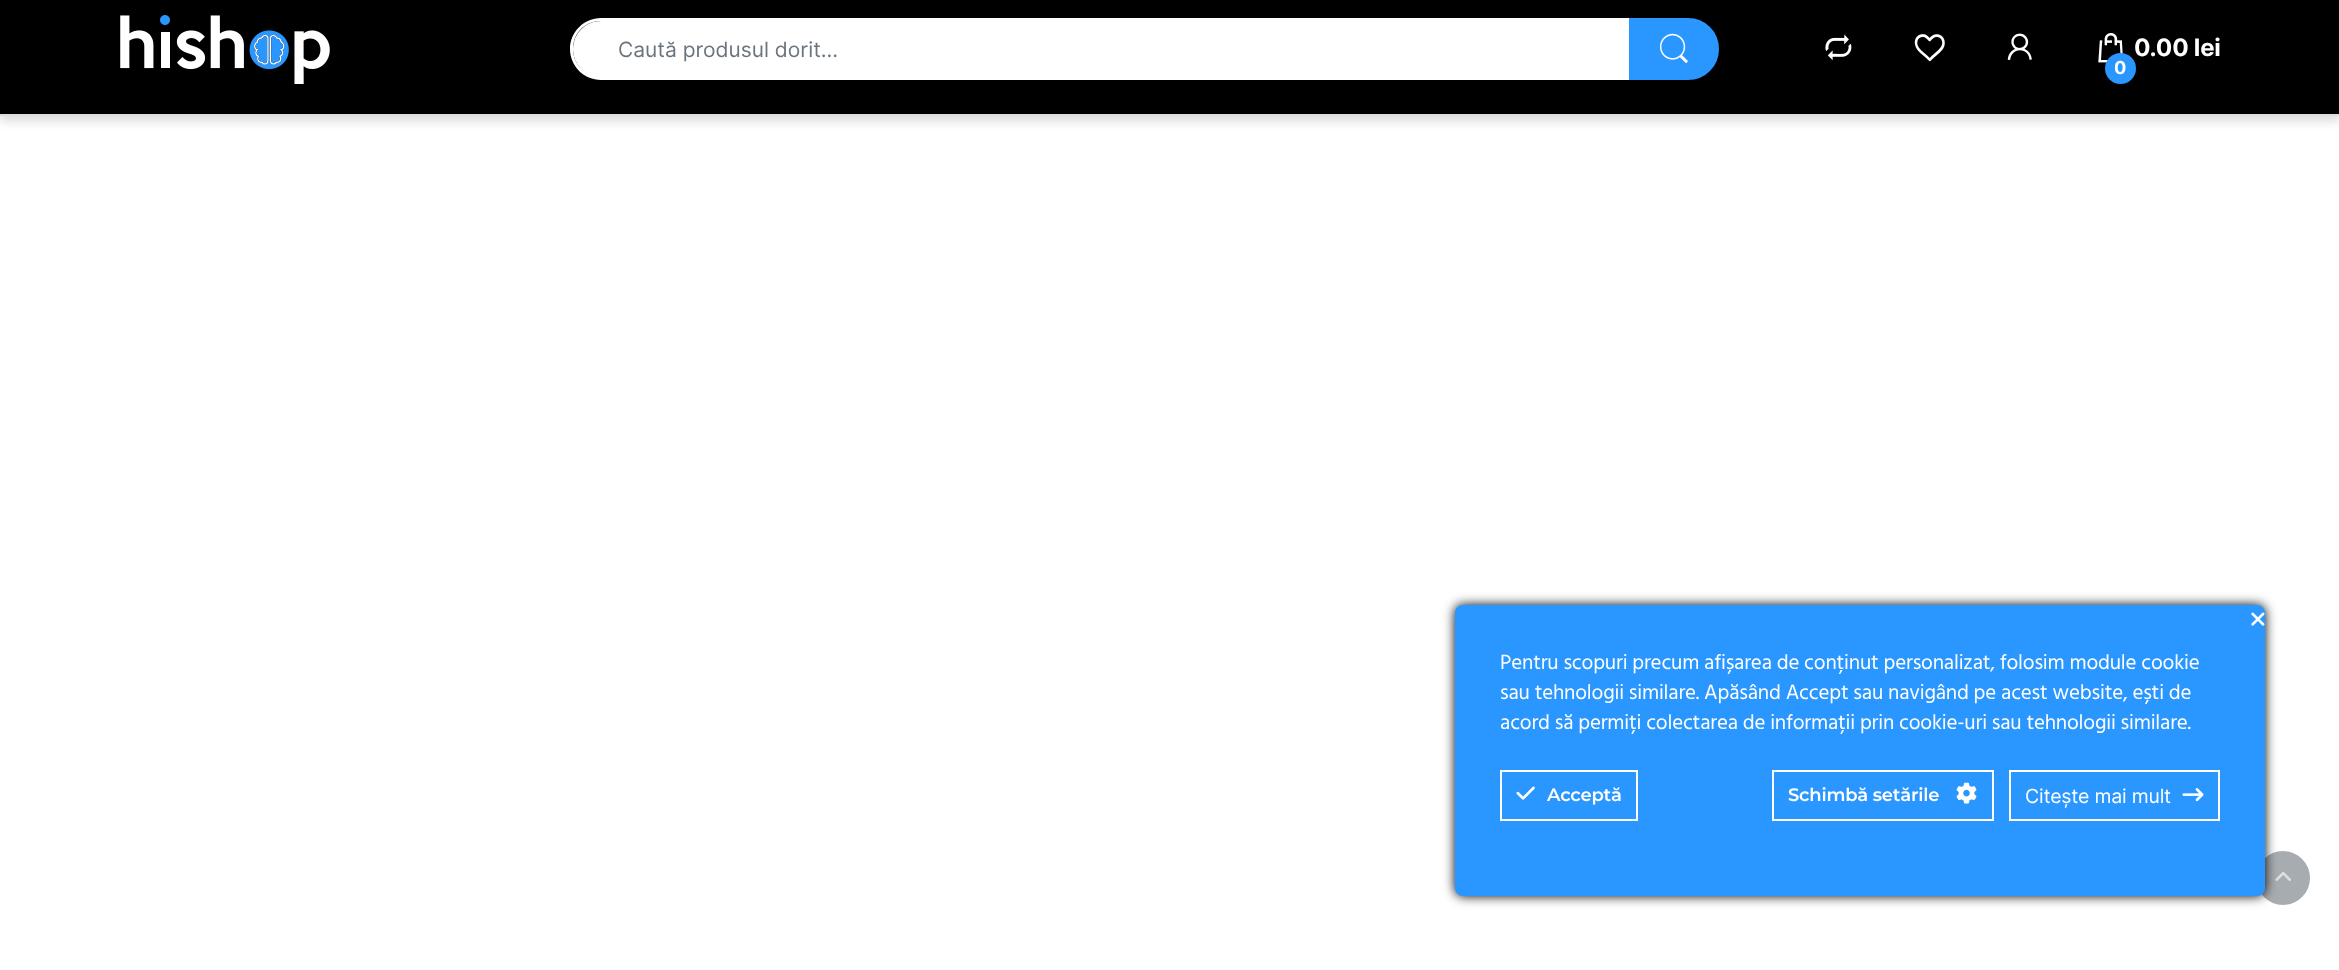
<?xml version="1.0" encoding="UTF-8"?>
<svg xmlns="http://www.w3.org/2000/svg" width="2339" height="970">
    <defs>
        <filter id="blur1" x="-50%" y="-200%" width="200%" height="500%"><feGaussianBlur stdDeviation="4.5"/></filter>
        <filter id="blur2" x="-50%" y="-200%" width="200%" height="500%"><feGaussianBlur stdDeviation="6"/></filter>
    </defs>
    <rect width="100%" height="100%" fill="#FFFFFF"/>
    <rect x="0" y="6" width="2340" height="116" fill="#000000" fill-opacity="0.12" filter="url(#blur1)"/>
    <rect x="0" y="0" width="2339" height="114" fill="#000000"/>
    <rect x="0" y="114" width="2339" height="2" fill="#DDDDDD"/>
    <image x="120" y="15" width="210" height="69" href="img_01.png"/>
    <path d="M 601 21 H 1631 V 77 H 601 C 585.5 77 573 64.5 573 49 C 573 33.5 585.5 21 601 21 Z" fill="#FFFFFF"/>
    <path d="M 601 18 H 1630 V 80 H 601 C 584 80 570 66 570 49 C 570 32 584 18 601 18 Z M 601 21 H 1630 V 76 H 601 C 585 76 573 64 573 49 C 573 33 585 21 601 21 Z" fill="#FFFFFF" fill-rule="evenodd"/>
    <text x="618" y="57" font-family="Inter" font-size="21" fill="#6C757D">Caută produsul dorit...</text>
    <path d="M 1630.5 19.5 H 1688 C 1704.5 19.5 1717.5 32.5 1717.5 49 C 1717.5 65.5 1704.5 78.5 1688 78.5 H 1630.5 Z" fill="#2997FF" stroke="#2997FF" stroke-width="3"/>
    <image x="1659" y="33" width="29" height="31" href="img_02.png"/>
    <image x="1825" y="34" width="27" height="27" href="img_03.png"/>
    <image x="1914" y="34" width="31" height="28" href="img_04.png"/>
    <image x="2007" y="33" width="25" height="27" href="img_05.png"/>
    <image x="2098" y="33" width="25" height="30" href="img_06.png"/>
    <text x="2134" y="56" font-family="Inter" font-size="24" font-weight="700" letter-spacing="-0.2" fill="#FFFFFF">0.00 lei</text>
    <circle cx="2120.5" cy="68.5" r="15.5" fill="#2997FF"/>
    <text x="2114" y="74" font-family="Inter" font-size="18" font-weight="700" letter-spacing="-0.2" fill="#FFFFFF">0</text>
    <circle cx="2283" cy="878" r="26" fill="#A7ACB1" stroke="#A7ACB1" stroke-width="2"/>
    <image x="2275" y="872" width="16" height="9" href="img_11.png"/>
    <rect x="1455" y="605" width="810" height="291" rx="8" fill="#000000" filter="url(#blur2)"/>
    <rect x="1455" y="605" width="810" height="291" rx="8" fill="#2997FF"/>
    <image x="2251" y="612" width="14" height="14" href="img_07.png"/>
    <text font-family="Hind" font-size="21" letter-spacing="-0.2" fill="#FFFFFF">
        <tspan x="1500" y="669">Pentru scopuri precum afișarea de conținut personalizat, folosim module cookie</tspan>
        <tspan x="1500" y="699">sau tehnologii similare. Apăsând Accept sau navigând pe acest website, ești de</tspan>
        <tspan x="1500" y="729">acord să permiți colectarea de informații prin cookie-uri sau tehnologii similare.</tspan>
    </text>
    <rect x="1501" y="771" width="136" height="49" fill="none" stroke="#FFFFFF" stroke-width="2"/>
    <image x="1516" y="786" width="19" height="14" href="img_08.png"/>
    <text x="1547" y="801" font-family="Montserrat" font-size="18" font-weight="600" letter-spacing="-0.2" fill="#FFFFFF">Acceptă</text>
    <rect x="1773" y="771" width="220" height="49" fill="none" stroke="#FFFFFF" stroke-width="2"/>
    <text x="1788" y="801" font-family="Montserrat" font-size="18" font-weight="600" letter-spacing="-0.2" fill="#FFFFFF">Schimbă setările</text>
    <image x="1956" y="782" width="21" height="22" href="img_09.png"/>
    <rect x="2010" y="771" width="209" height="49" fill="none" stroke="#FFFFFF" stroke-width="2"/>
    <text x="2025" y="803" font-family="Inter" font-size="19.5" letter-spacing="-0.2" fill="#FFFFFF">Citește mai mult</text>
    <image x="2182" y="788" width="22" height="14" href="img_10.png"/>
</svg>
